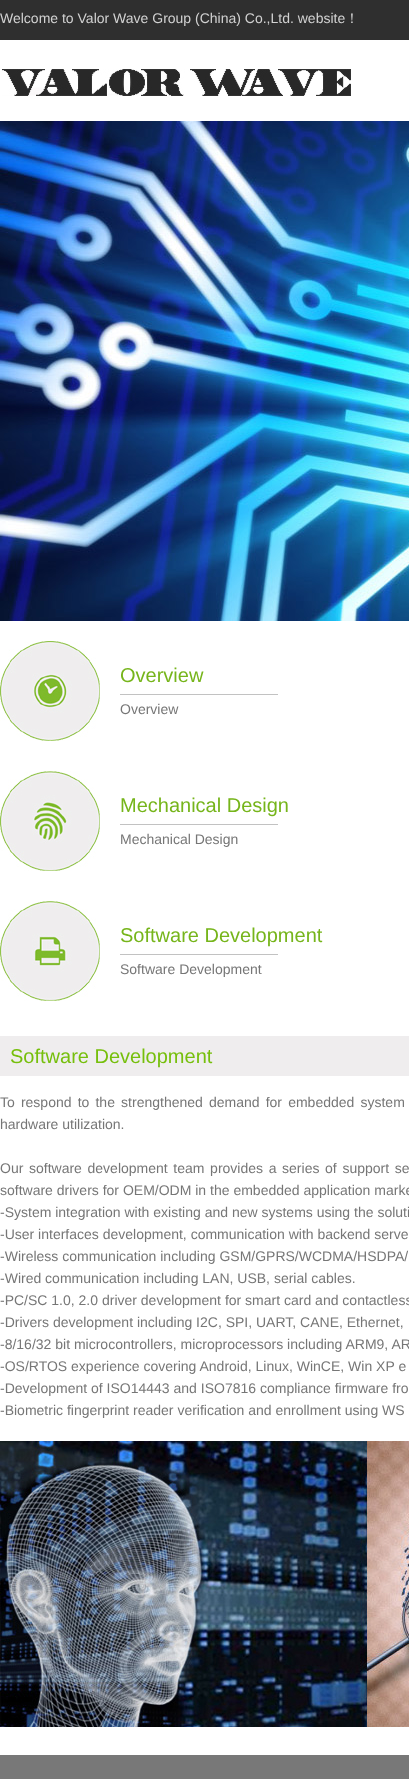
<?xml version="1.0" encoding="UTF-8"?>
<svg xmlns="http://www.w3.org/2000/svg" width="409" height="1779">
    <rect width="100%" height="100%" fill="#FFFFFF"/>
    <rect x="0" y="0" width="409" height="40" fill="#2F2F2F"/>
    <text x="0" y="23" font-family="Liberation Sans" font-size="14" fill="#D2D2D2">Welcome to Valor Wave Group (China) Co.,Ltd. website</text>
    <text x="345" y="23" font-family="WenQuanYi Zen Hei" font-size="14" font-weight="500" fill="#D2D2D2">！</text>
    <image x="2" y="69" width="349" height="27" href="img_01.png"/>
    <image x="0" y="121" width="409" height="500" href="img_02.png"/>
    <image x="0" y="641" width="100" height="100" href="img_03.png"/>
    <text x="120" y="682" font-family="Liberation Sans" font-size="20" fill="#76B51B">Overview</text>
    <rect x="120" y="694" width="158" height="1" fill="#C2C2C2"/>
    <text x="120" y="714" font-family="Liberation Sans" font-size="14" fill="#767676">Overview</text>
    <image x="0" y="771" width="100" height="100" href="img_04.png"/>
    <text x="120" y="812" font-family="Liberation Sans" font-size="20" fill="#76B51B">Mechanical Design</text>
    <rect x="120" y="824" width="158" height="1" fill="#C2C2C2"/>
    <text x="120" y="844" font-family="Liberation Sans" font-size="14" fill="#767676">Mechanical Design</text>
    <image x="0" y="901" width="100" height="100" href="img_05.png"/>
    <text x="120" y="942" font-family="Liberation Sans" font-size="20" fill="#76B51B">Software Development</text>
    <rect x="120" y="954" width="158" height="1" fill="#C2C2C2"/>
    <text x="120" y="974" font-family="Liberation Sans" font-size="14" fill="#767676">Software Development</text>
    <rect x="0" y="1036" width="409" height="40" fill="#EFEDEE"/>
    <text x="10" y="1063" font-family="Liberation Sans" font-size="20" fill="#76BF0C">Software Development</text>
    <text font-family="Liberation Sans" font-size="14" fill="#767676">
        <tspan x="0" y="1107" word-spacing="2.25">To respond to the strengthened demand for embedded system</tspan>
        <tspan x="0" y="1129">hardware utilization.</tspan>
    </text>
    <text font-family="Liberation Sans" font-size="14" fill="#767676">
        <tspan x="0" y="1173" word-spacing="1.75">Our software development team provides a series of support se</tspan>
        <tspan x="0" y="1195">software drivers for OEM/ODM in the embedded application marke</tspan>
        <tspan x="0" y="1217">-System integration with existing and new systems using the soluti</tspan>
        <tspan x="0" y="1239">-User interfaces development, communication with backend serve</tspan>
        <tspan x="0" y="1261">-Wireless communication including GSM/GPRS/WCDMA/HSDPA/</tspan>
        <tspan x="0" y="1283">-Wired communication including LAN, USB, serial cables.</tspan>
        <tspan x="0" y="1305">-PC/SC 1.0, 2.0 driver development for smart card and contactless</tspan>
        <tspan x="0" y="1327">-Drivers development including I2C, SPI, UART, CANE, Ethernet,</tspan>
        <tspan x="0" y="1349">-8/16/32 bit microcontrollers, microprocessors including ARM9, AR</tspan>
        <tspan x="0" y="1371">-OS/RTOS experience covering Android, Linux, WinCE, Win XP e</tspan>
        <tspan x="0" y="1393">-Development of ISO14443 and ISO7816 compliance firmware fro</tspan>
        <tspan x="0" y="1415">-Biometric fingerprint reader verification and enrollment using WS</tspan>
    </text>
    <image x="0" y="1441" width="409" height="286" href="img_06.png"/>
    <rect x="0" y="1755" width="409" height="24" fill="#787878"/>
</svg>
